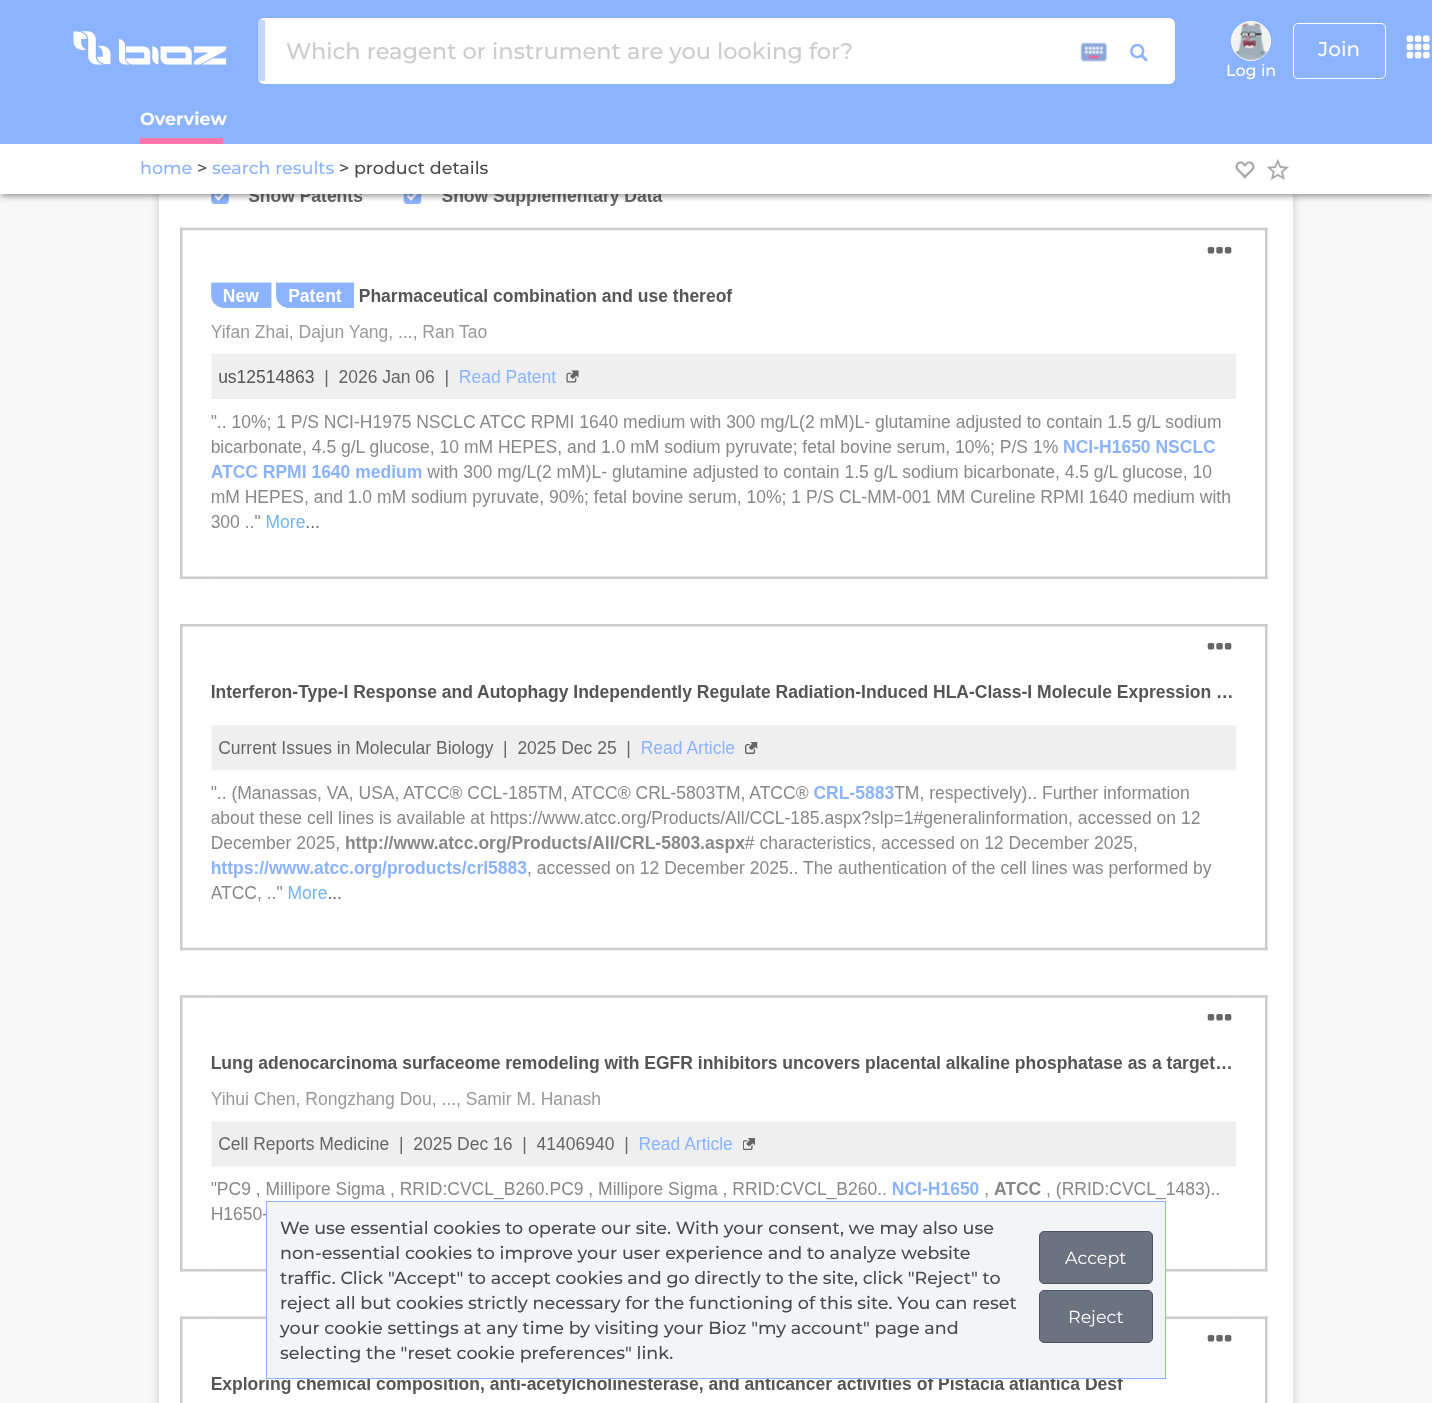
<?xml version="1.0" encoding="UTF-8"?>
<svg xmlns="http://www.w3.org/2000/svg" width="1432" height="1403">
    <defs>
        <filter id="blur1" x="-50%" y="-200%" width="200%" height="500%"><feGaussianBlur stdDeviation="5"/></filter>
        <filter id="blur2" x="-50%" y="-200%" width="200%" height="500%"><feGaussianBlur stdDeviation="2"/></filter>
        <filter id="blur3" x="-50%" y="-200%" width="200%" height="500%"><feGaussianBlur stdDeviation="2.5"/></filter>
    </defs>
    <rect width="100%" height="100%" fill="#F8F8F8"/>
    <rect x="159" y="-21" width="1134" height="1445" rx="6" fill="#000000" fill-opacity="0.2" filter="url(#blur1)"/>
    <rect x="159" y="194" width="1134" height="1209" fill="#FFFFFF"/>
    <image x="175" y="194" width="1098" height="1209" href="img_01.png"/>
    <rect x="0" y="1" width="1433" height="194" fill="#000000" fill-opacity="0.12" filter="url(#blur1)"/>
    <rect x="3" y="6" width="1427" height="189" fill="#000000" fill-opacity="0.2" filter="url(#blur2)"/>
    <rect x="0" y="4" width="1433" height="194" fill="#000000" fill-opacity="0.14" filter="url(#blur3)"/>
    <rect x="0" y="0" width="1432" height="144" fill="#8BB3FF"/>
    <image x="73" y="31" width="154" height="34" href="img_02.png"/>
    <rect x="258" y="18" width="917" height="66" rx="6" fill="#FFFFFF"/>
    <rect x="258" y="20" width="7" height="61" fill="#C4D7FA"/>
    <text x="286" y="59" font-family="Montserrat" font-size="22.5" font-weight="500" fill="#CCCCCC">Which reagent or instrument are you looking for?</text>
    <image x="1080" y="42" width="27" height="20" href="img_03.png"/>
    <image x="1130" y="43" width="18" height="19" href="img_04.png"/>
    <rect x="1293.5" y="23.5" width="92" height="55" rx="4.5" fill="none" stroke="#FFFFFF"/>
    <text x="1318" y="56" font-family="Montserrat" font-size="20" font-weight="500" fill="#FFFFFF">Join</text>
    <circle cx="1251" cy="41" r="19.5" fill="#F2F2F2" stroke="#FFFFFF"/>
    <image x="1235" y="23" width="32" height="38" href="img_05.png"/>
    <text x="1226" y="76" font-family="Montserrat" font-size="16" font-weight="500" fill="#FFFFFF">Log in</text>
    <image x="1406" y="35" width="24" height="24" href="img_06.png"/>
    <text x="140" y="125" font-family="Montserrat" font-size="17.5" font-weight="700" fill="#FFFFFF">Overview</text>
    <rect x="140" y="138" width="83" height="6" fill="#FF74A9"/>
    <rect x="0" y="144" width="1432" height="50" fill="#FFFFFF"/>
    <text x="140" y="174" font-family="Montserrat" font-size="17.5" font-weight="500" fill="#8BB3FF">home</text>
    <text x="197" y="174" font-family="Montserrat" font-size="17.5" font-weight="500" fill="#4A4A4A">&gt;</text>
    <text x="212" y="174" font-family="Montserrat" font-size="17.5" font-weight="500" fill="#8BB3FF">search results</text>
    <text x="339" y="174" font-family="Montserrat" font-size="17.5" font-weight="500" fill="#4A4A4A">&gt; product details</text>
    <image x="1235" y="161" width="20" height="18" href="img_07.png"/>
    <image x="1266" y="159" width="23" height="21" href="img_08.png"/>
    <rect x="266.5" y="1201.5" width="899" height="177" fill="#F3F4F6" stroke="#8BB3FF"/>
    <text font-family="Montserrat" font-size="17.5" font-weight="500" fill="#4A4A4A">
        <tspan x="280" y="1234">We use essential cookies to operate our site. With your consent, we may also use</tspan>
        <tspan x="280" y="1259">non-essential cookies to improve your user experience and to analyze website</tspan>
        <tspan x="280" y="1284">traffic. Click "Accept" to accept cookies and go directly to the site, click "Reject" to</tspan>
        <tspan x="280" y="1309">reject all but cookies strictly necessary for the functioning of this site. You can reset</tspan>
        <tspan x="280" y="1334">your cookie settings at any time by visiting your Bioz "my account" page and</tspan>
        <tspan x="280" y="1359">selecting the "reset cookie preferences" link.</tspan>
    </text>
    <rect x="1039.5" y="1231.5" width="113" height="52" rx="4.5" fill="#6B7280" stroke="#4B5563"/>
    <text x="1065" y="1264" font-family="Montserrat" font-size="17.5" fill="#FFFFFF">Accept</text>
    <rect x="1039.5" y="1290.5" width="113" height="52" rx="4.5" fill="#6B7280" stroke="#4B5563"/>
    <text x="1068" y="1323" font-family="Montserrat" font-size="17.5" fill="#FFFFFF">Reject</text>
</svg>
